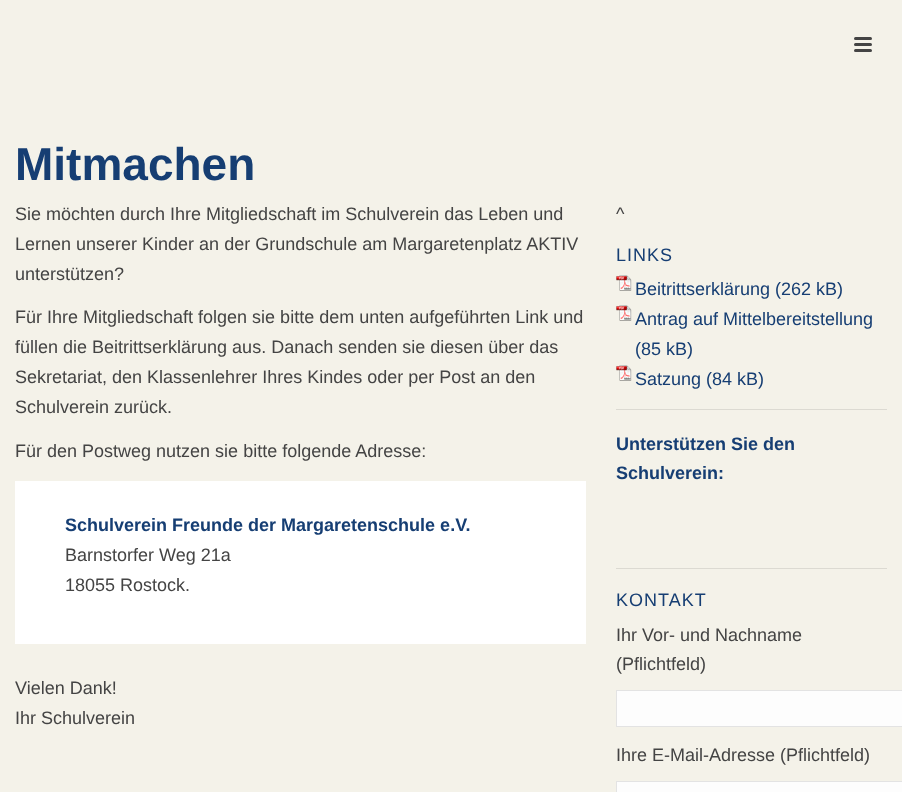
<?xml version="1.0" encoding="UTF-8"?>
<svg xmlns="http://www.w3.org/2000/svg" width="902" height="792">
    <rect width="100%" height="100%" fill="#F4F2E9"/>
    <rect x="854" y="37" width="18" height="3" rx="1.5" fill="#444444"/>
    <rect x="854" y="43" width="18" height="3" rx="1.5" fill="#444444"/>
    <rect x="854" y="49" width="18" height="3" rx="1.5" fill="#444444"/>
    <text x="15" y="180" font-family="Liberation Sans" font-size="46" font-weight="700" fill="#163E73">Mitmachen</text>
    <text font-family="Liberation Sans" font-size="18" fill="#444444">
        <tspan x="15" y="220">Sie möchten durch Ihre Mitgliedschaft im Schulverein das Leben und</tspan>
        <tspan x="15" y="250">Lernen unserer Kinder an der Grundschule am Margaretenplatz AKTIV</tspan>
        <tspan x="15" y="280">unterstützen?</tspan>
    </text>
    <text font-family="Liberation Sans" font-size="18" fill="#444444">
        <tspan x="15" y="323">Für Ihre Mitgliedschaft folgen sie bitte dem unten aufgeführten Link und</tspan>
        <tspan x="15" y="353">füllen die Beitrittserklärung aus. Danach senden sie diesen über das</tspan>
        <tspan x="15" y="383">Sekretariat, den Klassenlehrer Ihres Kindes oder per Post an den</tspan>
        <tspan x="15" y="413">Schulverein zurück.</tspan>
    </text>
    <text x="15" y="457" font-family="Liberation Sans" font-size="18" fill="#444444">Für den Postweg nutzen sie bitte folgende Adresse:</text>
    <rect x="15" y="481" width="571" height="163" fill="#FFFFFF"/>
    <text x="65" y="531" font-family="Liberation Sans" font-size="18" font-weight="700" fill="#163E73">Schulverein Freunde der Margaretenschule e.V.</text>
    <text font-family="Liberation Sans" font-size="18" fill="#444444">
        <tspan x="65" y="561">Barnstorfer Weg 21a</tspan>
        <tspan x="65" y="591">18055 Rostock.</tspan>
    </text>
    <text font-family="Liberation Sans" font-size="18" fill="#444444">
        <tspan x="15" y="694">Vielen Dank!</tspan>
        <tspan x="15" y="724">Ihr Schulverein</tspan>
    </text>
    <text x="616" y="220" font-family="Liberation Sans" font-size="18" fill="#444444">^</text>
    <text x="616" y="261" font-family="Liberation Sans" font-size="18" letter-spacing="1" fill="#163E73">LINKS</text>
    <image x="616" y="275" width="16" height="16" href="img_01.png"/>
    <text x="635" y="295" font-family="Liberation Sans" font-size="18" fill="#163E73">Beitrittserklärung (262 kB)</text>
    <image x="616" y="305" width="16" height="16" href="img_01.png"/>
    <text font-family="Liberation Sans" font-size="18" fill="#163E73">
        <tspan x="635" y="325">Antrag auf Mittelbereitstellung</tspan>
        <tspan x="635" y="355">(85 kB)</tspan>
    </text>
    <image x="616" y="365" width="16" height="16" href="img_01.png"/>
    <text x="635" y="385" font-family="Liberation Sans" font-size="18" fill="#163E73">Satzung (84 kB)</text>
    <rect x="616" y="409" width="271" height="1" fill="#DCDAD2"/>
    <text font-family="Liberation Sans" font-size="18" font-weight="700" fill="#163E73">
        <tspan x="616" y="450">Unterstützen Sie den</tspan>
        <tspan x="616" y="479">Schulverein:</tspan>
    </text>
    <rect x="616" y="568" width="271" height="1" fill="#DCDAD2"/>
    <text x="616" y="606" font-family="Liberation Sans" font-size="18" letter-spacing="1" fill="#163E73">KONTAKT</text>
    <text font-family="Liberation Sans" font-size="18" fill="#444444">
        <tspan x="616" y="641">Ihr Vor- und Nachname</tspan>
        <tspan x="616" y="670">(Pflichtfeld)</tspan>
    </text>
    <rect x="616.5" y="690.5" width="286" height="36" fill="#FDFDFD" stroke="#E3E3E3"/>
    <text x="616" y="761" font-family="Liberation Sans" font-size="18" fill="#444444">Ihre E-Mail-Adresse (Pflichtfeld)</text>
    <rect x="616.5" y="781.5" width="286" height="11" fill="#FDFDFD" stroke="#E3E3E3"/>
</svg>
